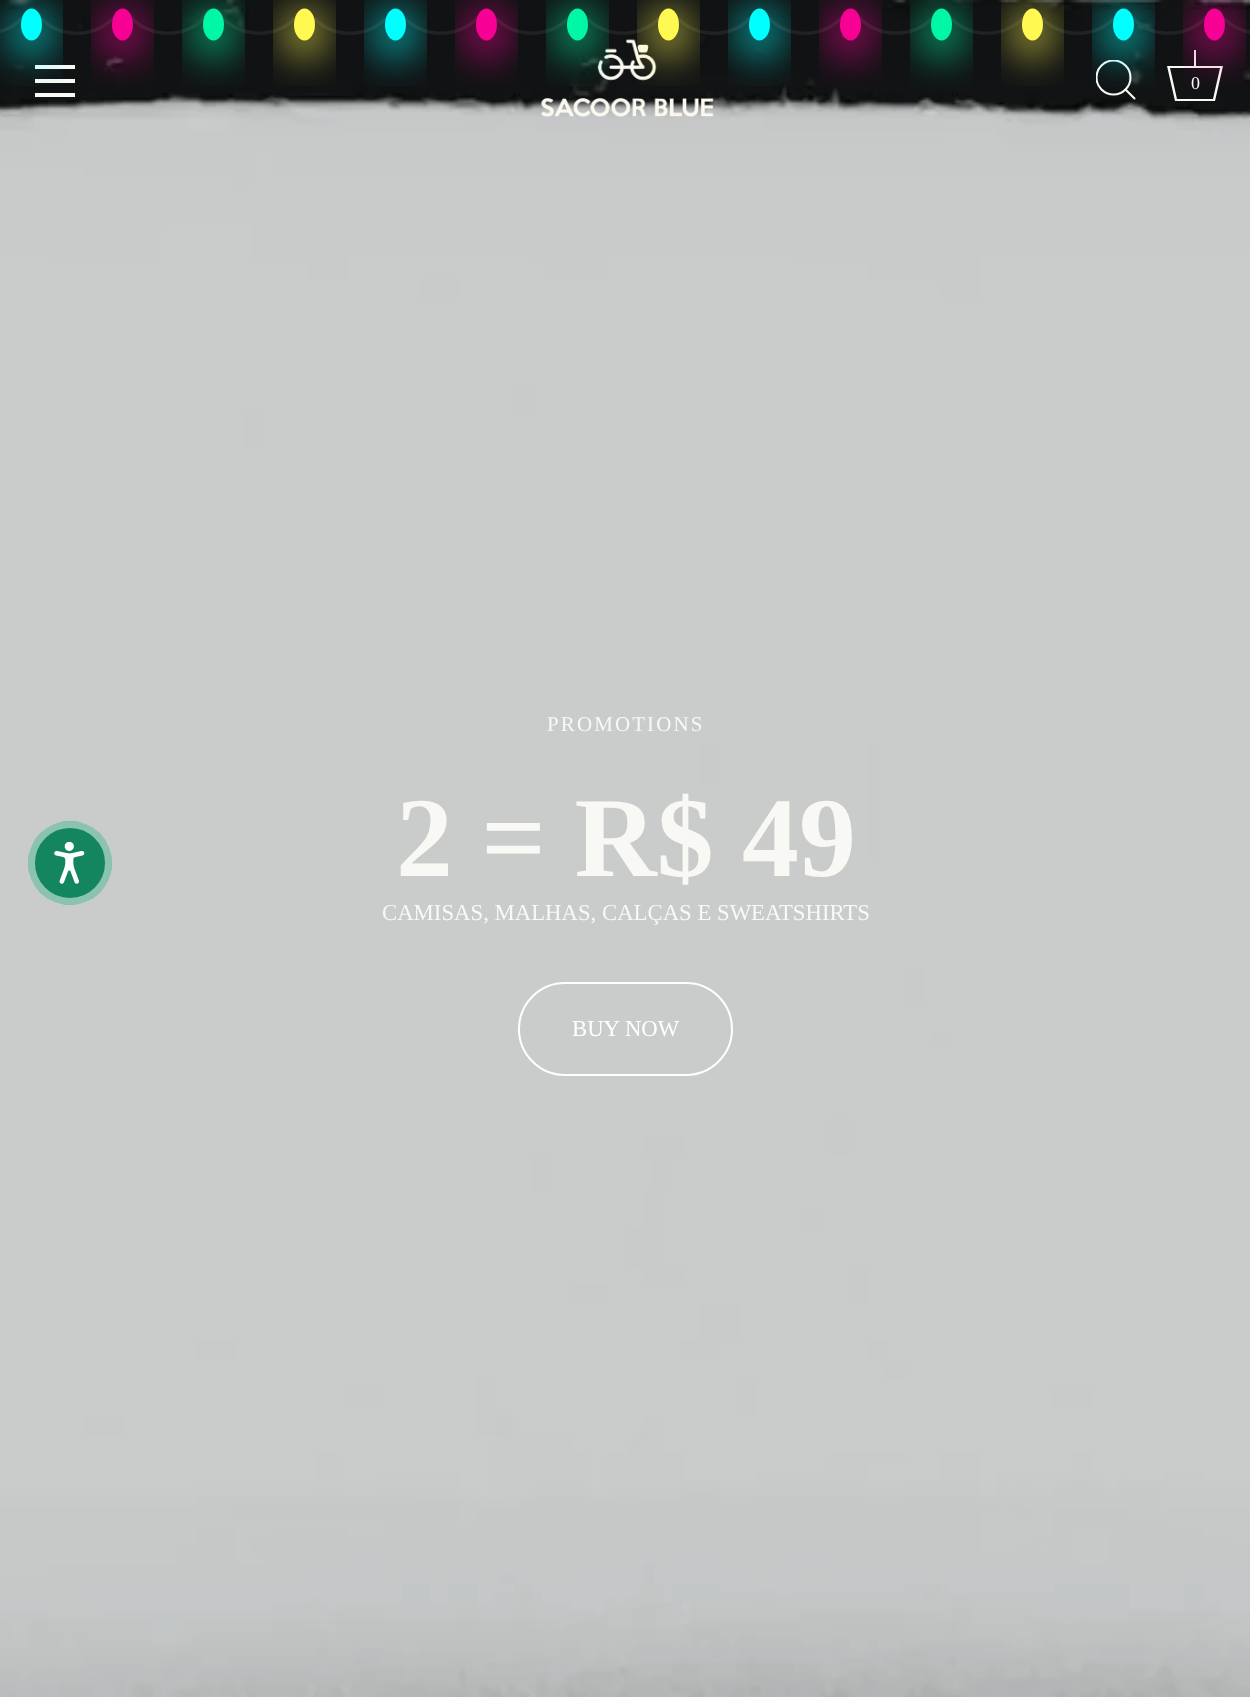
<?xml version="1.0" encoding="UTF-8"?>
<svg xmlns="http://www.w3.org/2000/svg" width="1250" height="1697">
    <defs>
        <clipPath id="clip1"><rect x="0" y="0" width="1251" height="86"/></clipPath>
        <filter id="blur1" x="-50%" y="-200%" width="200%" height="500%"><feGaussianBlur stdDeviation="21"/></filter>
        <clipPath id="clip2"><rect x="1096" y="60" width="42" height="42"/></clipPath>
    </defs>
    <rect width="100%" height="100%" fill="#FFFFFF"/>
    <image x="0" y="0" width="1250" height="1697" href="img_03.png"/>
    <path d="M 113 18.5 C 93.5 38 60.5 38 41 18.5" fill="none" stroke="#222222" stroke-width="3.5"/>
    <path d="M 22 18.5 C 2.5 38 -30.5 38 -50 18.5" fill="none" stroke="#222222" stroke-width="3.5"/>
    <rect x="35" y="65" width="40" height="4" fill="#F8F9F5"/>
    <rect x="35" y="79" width="40" height="4" fill="#F8F9F5"/>
    <rect x="35" y="93" width="40" height="4" fill="#F8F9F5"/>
    <g clip-path="url(#clip1)">
        <rect x="16" y="12" width="31" height="42" rx="15.5" fill="#00FFFF" filter="url(#blur1)"/>
    </g>
    <ellipse cx="31.5" cy="24.5" rx="10.5" ry="16" fill="#00FFFF"/>
    <path d="M 204 18.5 C 184.5 38 151.5 38 132 18.5" fill="none" stroke="#222222" stroke-width="3.5"/>
    <g clip-path="url(#clip1)">
        <rect x="107" y="12" width="31" height="42" rx="15.5" fill="#F70094" filter="url(#blur1)"/>
    </g>
    <ellipse cx="122.5" cy="24.5" rx="10.5" ry="16" fill="#F70094"/>
    <path d="M 295 18.5 C 275.5 38 242.5 38 223 18.5" fill="none" stroke="#222222" stroke-width="3.5"/>
    <g clip-path="url(#clip1)">
        <rect x="198" y="12" width="31" height="42" rx="15.5" fill="#00F7A5" filter="url(#blur1)"/>
    </g>
    <ellipse cx="213.5" cy="24.5" rx="10.5" ry="16" fill="#00F7A5"/>
    <path d="M 386 18.5 C 366.5 38 333.5 38 314 18.5" fill="none" stroke="#222222" stroke-width="3.5"/>
    <g clip-path="url(#clip1)">
        <rect x="289" y="12" width="31" height="42" rx="15.5" fill="#FFF952" filter="url(#blur1)"/>
    </g>
    <ellipse cx="304.5" cy="24.5" rx="10.5" ry="16" fill="#FFF952"/>
    <path d="M 477 18.5 C 457.5 38 424.5 38 405 18.5" fill="none" stroke="#222222" stroke-width="3.5"/>
    <g clip-path="url(#clip1)">
        <rect x="380" y="12" width="31" height="42" rx="15.5" fill="#00FFFF" filter="url(#blur1)"/>
    </g>
    <ellipse cx="395.5" cy="24.5" rx="10.5" ry="16" fill="#00FFFF"/>
    <path d="M 568 18.5 C 548.5 38 515.5 38 496 18.5" fill="none" stroke="#222222" stroke-width="3.5"/>
    <image x="541" y="39" width="173" height="78" href="img_01.png"/>
    <g clip-path="url(#clip1)">
        <rect x="471" y="12" width="31" height="42" rx="15.5" fill="#F70094" filter="url(#blur1)"/>
    </g>
    <ellipse cx="486.5" cy="24.5" rx="10.5" ry="16" fill="#F70094"/>
    <path d="M 659 18.5 C 639.5 38 606.5 38 587 18.5" fill="none" stroke="#222222" stroke-width="3.5"/>
    <g clip-path="url(#clip1)">
        <rect x="562" y="12" width="31" height="42" rx="15.5" fill="#00F7A5" filter="url(#blur1)"/>
    </g>
    <ellipse cx="577.5" cy="24.5" rx="10.5" ry="16" fill="#00F7A5"/>
    <path d="M 750 18.5 C 730.5 38 697.5 38 678 18.5" fill="none" stroke="#222222" stroke-width="3.5"/>
    <g clip-path="url(#clip1)">
        <rect x="653" y="12" width="31" height="42" rx="15.5" fill="#FFF952" filter="url(#blur1)"/>
    </g>
    <ellipse cx="668.5" cy="24.5" rx="10.5" ry="16" fill="#FFF952"/>
    <path d="M 841 18.5 C 821.5 38 788.5 38 769 18.5" fill="none" stroke="#222222" stroke-width="3.5"/>
    <g clip-path="url(#clip1)">
        <rect x="744" y="12" width="31" height="42" rx="15.5" fill="#00FFFF" filter="url(#blur1)"/>
    </g>
    <ellipse cx="759.5" cy="24.5" rx="10.5" ry="16" fill="#00FFFF"/>
    <path d="M 932 18.5 C 912.5 38 879.5 38 860 18.5" fill="none" stroke="#222222" stroke-width="3.5"/>
    <g clip-path="url(#clip1)">
        <rect x="835" y="12" width="31" height="42" rx="15.5" fill="#F70094" filter="url(#blur1)"/>
    </g>
    <ellipse cx="850.5" cy="24.5" rx="10.5" ry="16" fill="#F70094"/>
    <path d="M 1023 18.5 C 1003.5 38 970.5 38 951 18.5" fill="none" stroke="#222222" stroke-width="3.5"/>
    <g clip-path="url(#clip1)">
        <rect x="926" y="12" width="31" height="42" rx="15.5" fill="#00F7A5" filter="url(#blur1)"/>
    </g>
    <ellipse cx="941.5" cy="24.5" rx="10.5" ry="16" fill="#00F7A5"/>
    <path d="M 1114 18.5 C 1094.5 38 1061.5 38 1042 18.5" fill="none" stroke="#222222" stroke-width="3.5"/>
    <g clip-path="url(#clip2)">
        <circle cx="1113.5" cy="77.5" r="17" fill="none" stroke="#F8F9F5" stroke-width="2.1"/>
    </g>
    <g clip-path="url(#clip1)">
        <rect x="1017" y="12" width="31" height="42" rx="15.5" fill="#FFF952" filter="url(#blur1)"/>
    </g>
    <ellipse cx="1032.5" cy="24.5" rx="10.5" ry="16" fill="#FFF952"/>
    <path d="M 1205 18.5 C 1185.5 38 1152.5 38 1133 18.5" fill="none" stroke="#222222" stroke-width="3.5"/>
    <path d="M 1134.5 98.5 L 1125.5 89.5" fill="none" stroke="#F8F9F5" stroke-width="2.1" stroke-linecap="round" stroke-linejoin="round"/>
    <rect x="1194" y="50" width="2" height="16" fill="#F8F9F5"/>
    <path d="M 1220 68 L 1213 99 H 1177 L 1170 68 H 1220 M 1223 66 H 1167 L 1175 101 H 1215 Z" fill="#F8F9F5"/>
    <g clip-path="url(#clip1)">
        <rect x="1108" y="12" width="31" height="42" rx="15.5" fill="#00FFFF" filter="url(#blur1)"/>
    </g>
    <ellipse cx="1123.5" cy="24.5" rx="10.5" ry="16" fill="#00FFFF"/>
    <path d="M 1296 18.5 C 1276.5 38 1243.5 38 1224 18.5" fill="none" stroke="#222222" stroke-width="3.5"/>
    <g clip-path="url(#clip1)">
        <rect x="1199" y="12" width="31" height="42" rx="15.5" fill="#F70094" filter="url(#blur1)"/>
    </g>
    <ellipse cx="1214.5" cy="24.5" rx="10.5" ry="16" fill="#F70094"/>
    <text x="1191" y="89" font-family="Liberation Serif" font-size="18" fill="#F8F9F5">0</text>
    <circle cx="70" cy="863" r="42" fill="#14865F"/>
    <circle cx="70" cy="863" r="38.5" fill="none" stroke="#FFFFFF" stroke-opacity="0.5" stroke-width="7"/>
    <image x="54" y="842" width="31" height="42" href="img_02.png"/>
    <text x="547" y="731" font-family="Liberation Serif" font-size="21" letter-spacing="2.1" fill="#F8F9F5">PROMOTIONS</text>
    <text x="396" y="876" font-family="Liberation Serif" font-size="113.75" font-weight="700" fill="#F8F9F5">2 = R$ 49</text>
    <text x="382" y="920" font-family="Liberation Serif" font-size="22.75" fill="#F8F9F5">CAMISAS, MALHAS, CALÇAS E SWEATSHIRTS</text>
    <rect x="519" y="983" width="213" height="92" rx="46" fill="none" stroke="#FFFFFF" stroke-width="2"/>
    <text x="572" y="1036" font-family="Liberation Serif" font-size="22.75" fill="#FFFFFF">BUY NOW</text>
</svg>
